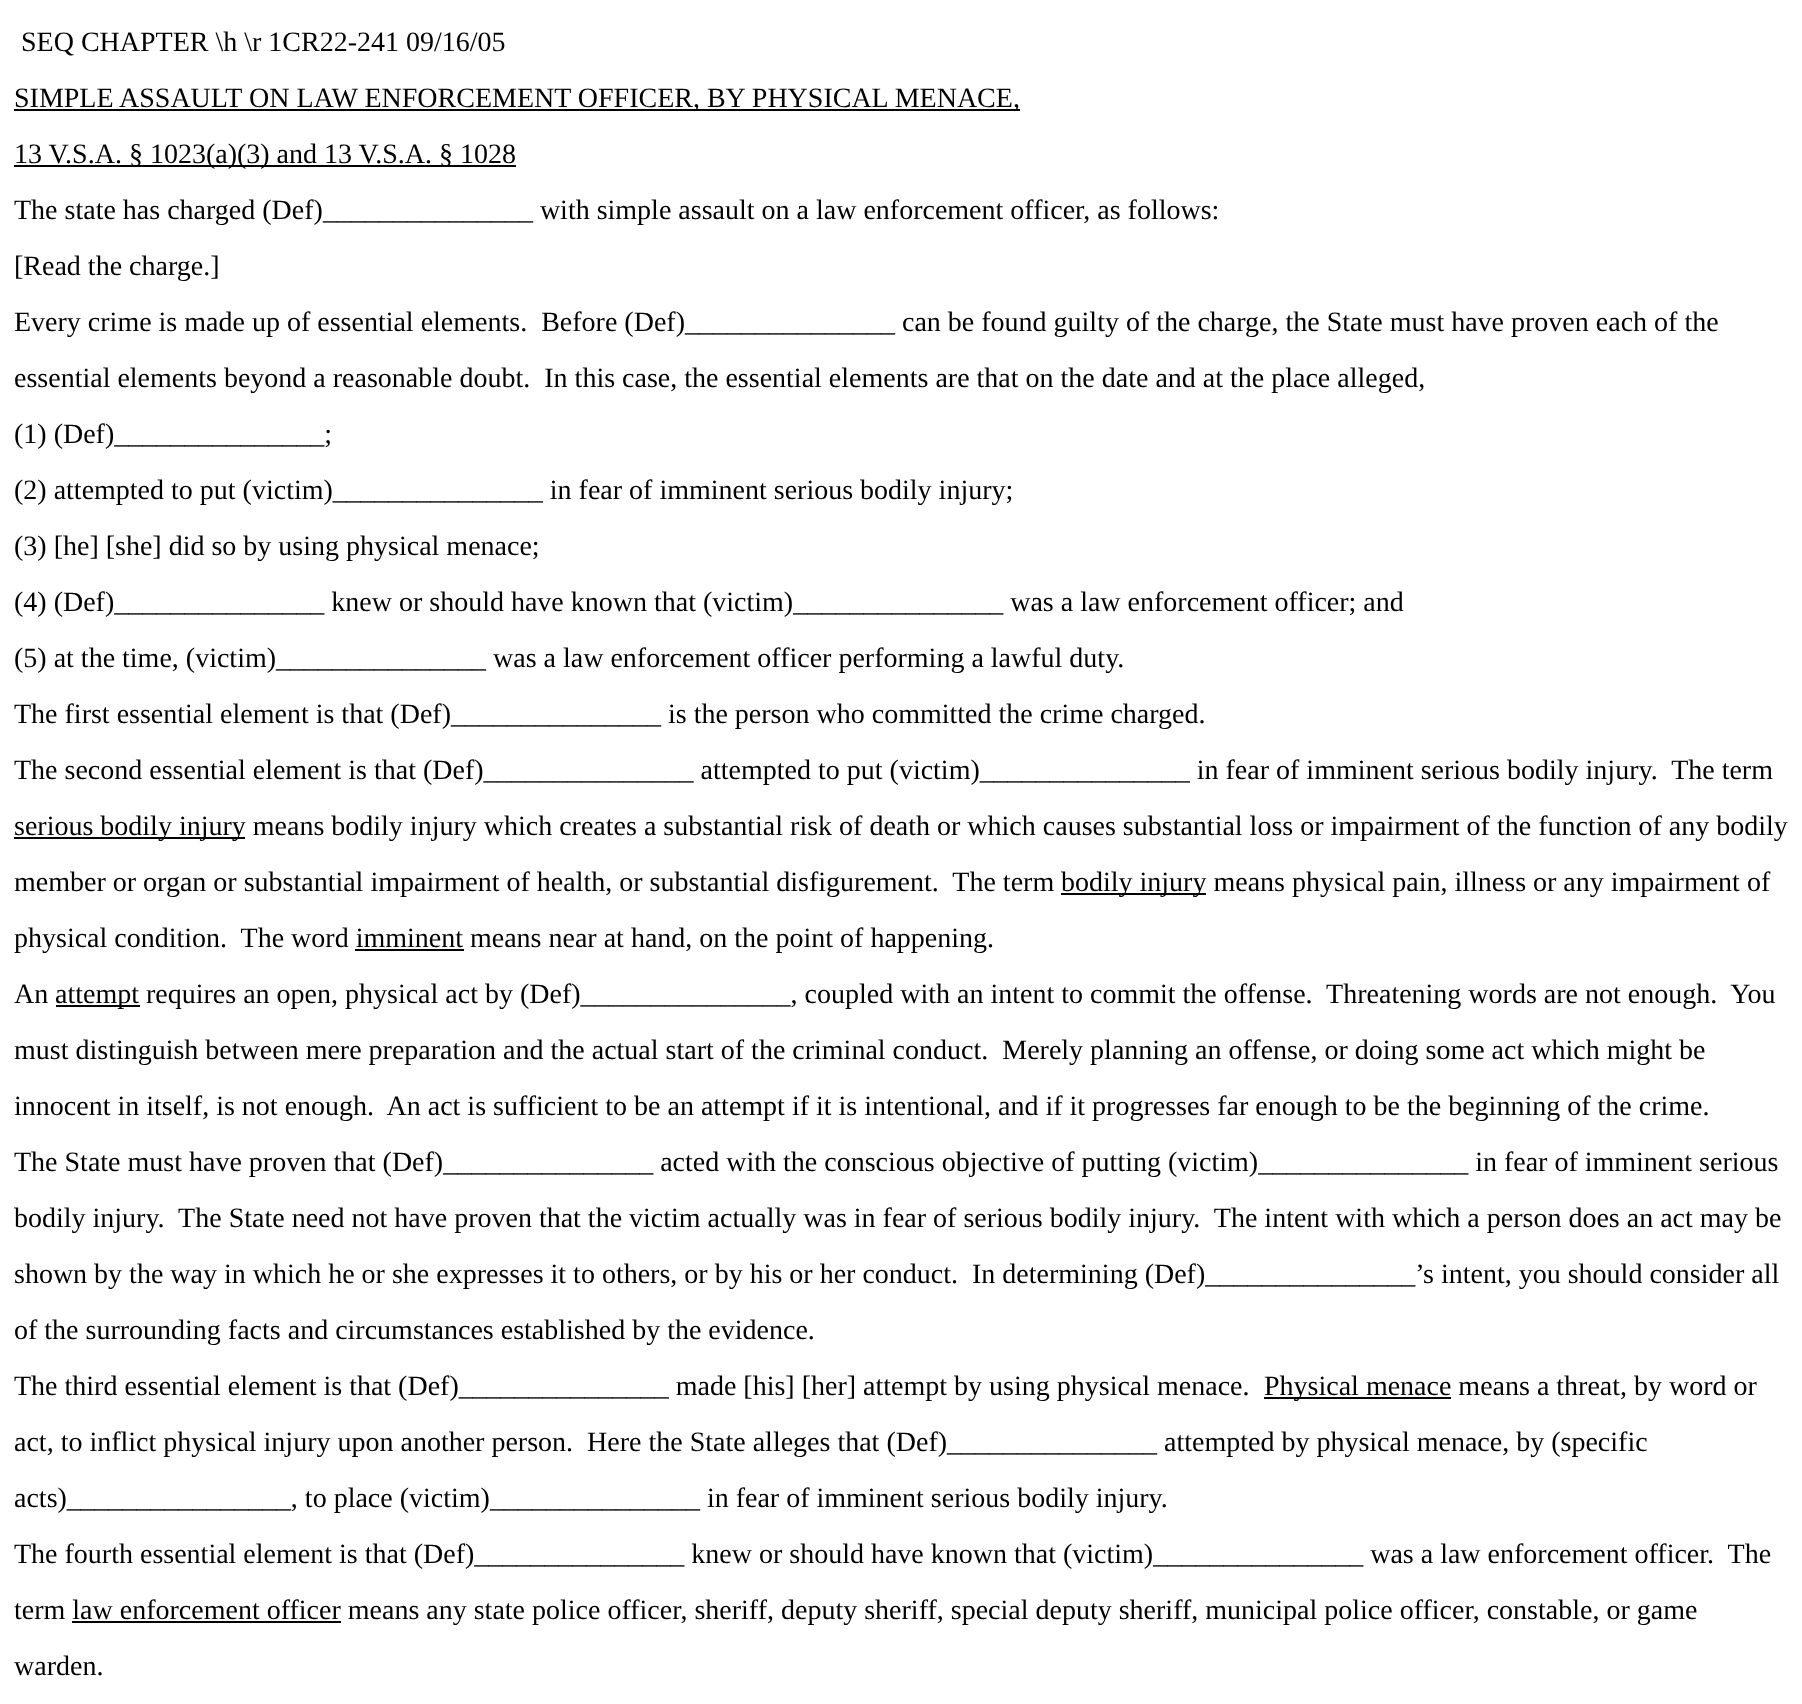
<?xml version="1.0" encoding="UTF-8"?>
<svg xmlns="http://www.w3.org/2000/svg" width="1802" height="1704">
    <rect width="100%" height="100%" fill="#FFFFFF"/>
    <text x="21" y="51" font-family="Liberation Serif" font-size="28" fill="#000000">SEQ CHAPTER \h \r 1CR22-241 09/16/05</text>
    <rect x="14" y="109" width="1006" height="2" fill="#000000"/>
    <text x="14" y="107" font-family="Liberation Serif" font-size="28" fill="#000000">SIMPLE ASSAULT ON LAW ENFORCEMENT OFFICER, BY PHYSICAL MENACE,</text>
    <rect x="14" y="165" width="502" height="2" fill="#000000"/>
    <text x="14" y="163" font-family="Liberation Serif" font-size="28" fill="#000000">13 V.S.A. § 1023(a)(3) and 13 V.S.A. § 1028</text>
    <text x="14" y="219" font-family="Liberation Serif" font-size="28" fill="#000000">The state has charged (Def)_______________ with simple assault on a law enforcement officer, as follows:</text>
    <text x="14" y="275" font-family="Liberation Serif" font-size="28" fill="#000000">[Read the charge.]</text>
    <text x="14" y="331" font-family="Liberation Serif" font-size="28" fill="#000000" xml:space="preserve">Every crime is made up of essential elements.  Before (Def)_______________ can be found guilty of the charge, the State must have proven each of the</text>
    <text x="14" y="387" font-family="Liberation Serif" font-size="28" fill="#000000" xml:space="preserve">essential elements beyond a reasonable doubt.  In this case, the essential elements are that on the date and at the place alleged,</text>
    <text x="14" y="443" font-family="Liberation Serif" font-size="28" fill="#000000">(1) (Def)_______________;</text>
    <text x="14" y="499" font-family="Liberation Serif" font-size="28" fill="#000000">(2) attempted to put (victim)_______________ in fear of imminent serious bodily injury;</text>
    <text x="14" y="555" font-family="Liberation Serif" font-size="28" fill="#000000">(3) [he] [she] did so by using physical menace;</text>
    <text x="14" y="611" font-family="Liberation Serif" font-size="28" fill="#000000">(4) (Def)_______________ knew or should have known that (victim)_______________ was a law enforcement officer; and</text>
    <text x="14" y="667" font-family="Liberation Serif" font-size="28" fill="#000000">(5) at the time, (victim)_______________ was a law enforcement officer performing a lawful duty.</text>
    <text x="14" y="723" font-family="Liberation Serif" font-size="28" fill="#000000">The first essential element is that (Def)_______________ is the person who committed the crime charged.</text>
    <text x="14" y="779" font-family="Liberation Serif" font-size="28" fill="#000000" xml:space="preserve">The second essential element is that (Def)_______________ attempted to put (victim)_______________ in fear of imminent serious bodily injury.  The term</text>
    <rect x="14" y="837" width="231" height="2" fill="#000000"/>
    <text x="14" y="835" font-family="Liberation Serif" font-size="28" fill="#000000">serious bodily injury means bodily injury which creates a substantial risk of death or which causes substantial loss or impairment of the function of any bodily</text>
    <text x="14" y="891" font-family="Liberation Serif" font-size="28" fill="#000000" xml:space="preserve">member or organ or substantial impairment of health, or substantial disfigurement.  The term</text>
    <rect x="1061" y="893" width="145" height="2" fill="#000000"/>
    <text x="1061" y="891" font-family="Liberation Serif" font-size="28" fill="#000000">bodily injury means physical pain, illness or any impairment of</text>
    <text x="14" y="947" font-family="Liberation Serif" font-size="28" fill="#000000" xml:space="preserve">physical condition.  The word imminent means near at hand, on the point of happening.</text>
    <rect x="355" y="949" width="109" height="2" fill="#000000"/>
    <text x="14" y="1003" font-family="Liberation Serif" font-size="28" fill="#000000">An</text>
    <rect x="56" y="1005" width="84" height="2" fill="#000000"/>
    <text x="55" y="1003" font-family="Liberation Serif" font-size="28" fill="#000000" xml:space="preserve">attempt requires an open, physical act by (Def)_______________, coupled with an intent to commit the offense.  Threatening words are not enough.  You</text>
    <text x="14" y="1059" font-family="Liberation Serif" font-size="28" fill="#000000" xml:space="preserve">must distinguish between mere preparation and the actual start of the criminal conduct.  Merely planning an offense, or doing some act which might be</text>
    <text x="14" y="1115" font-family="Liberation Serif" font-size="28" fill="#000000" xml:space="preserve">innocent in itself, is not enough.  An act is sufficient to be an attempt if it is intentional, and if it progresses far enough to be the beginning of the crime.</text>
    <text x="14" y="1171" font-family="Liberation Serif" font-size="28" fill="#000000">The State must have proven that (Def)_______________ acted with the conscious objective of putting (victim)_______________ in fear of imminent serious</text>
    <text x="14" y="1227" font-family="Liberation Serif" font-size="28" fill="#000000" xml:space="preserve">bodily injury.  The State need not have proven that the victim actually was in fear of serious bodily injury.  The intent with which a person does an act may be</text>
    <text x="14" y="1283" font-family="Liberation Serif" font-size="28" fill="#000000" xml:space="preserve">shown by the way in which he or she expresses it to others, or by his or her conduct.  In determining (Def)_______________’s intent, you should consider all</text>
    <text x="14" y="1339" font-family="Liberation Serif" font-size="28" fill="#000000">of the surrounding facts and circumstances established by the evidence.</text>
    <text x="14" y="1395" font-family="Liberation Serif" font-size="28" fill="#000000">The third essential element is that (Def)_______________ made [his] [her] attempt by using physical menace.</text>
    <rect x="1264" y="1397" width="187" height="2" fill="#000000"/>
    <text x="1264" y="1395" font-family="Liberation Serif" font-size="28" fill="#000000">Physical menace means a threat, by word or</text>
    <text x="14" y="1451" font-family="Liberation Serif" font-size="28" fill="#000000" xml:space="preserve">act, to inflict physical injury upon another person.  Here the State alleges that (Def)_______________ attempted by physical menace, by (specific</text>
    <text x="14" y="1507" font-family="Liberation Serif" font-size="28" fill="#000000">acts)________________, to place (victim)_______________ in fear of imminent serious bodily injury.</text>
    <text x="14" y="1563" font-family="Liberation Serif" font-size="28" fill="#000000" xml:space="preserve">The fourth essential element is that (Def)_______________ knew or should have known that (victim)_______________ was a law enforcement officer.  The</text>
    <text x="14" y="1619" font-family="Liberation Serif" font-size="28" fill="#000000">term law enforcement officer means any state police officer, sheriff, deputy sheriff, special deputy sheriff, municipal police officer, constable, or game</text>
    <rect x="72" y="1621" width="269" height="2" fill="#000000"/>
    <text x="14" y="1675" font-family="Liberation Serif" font-size="28" fill="#000000">warden.</text>
</svg>
